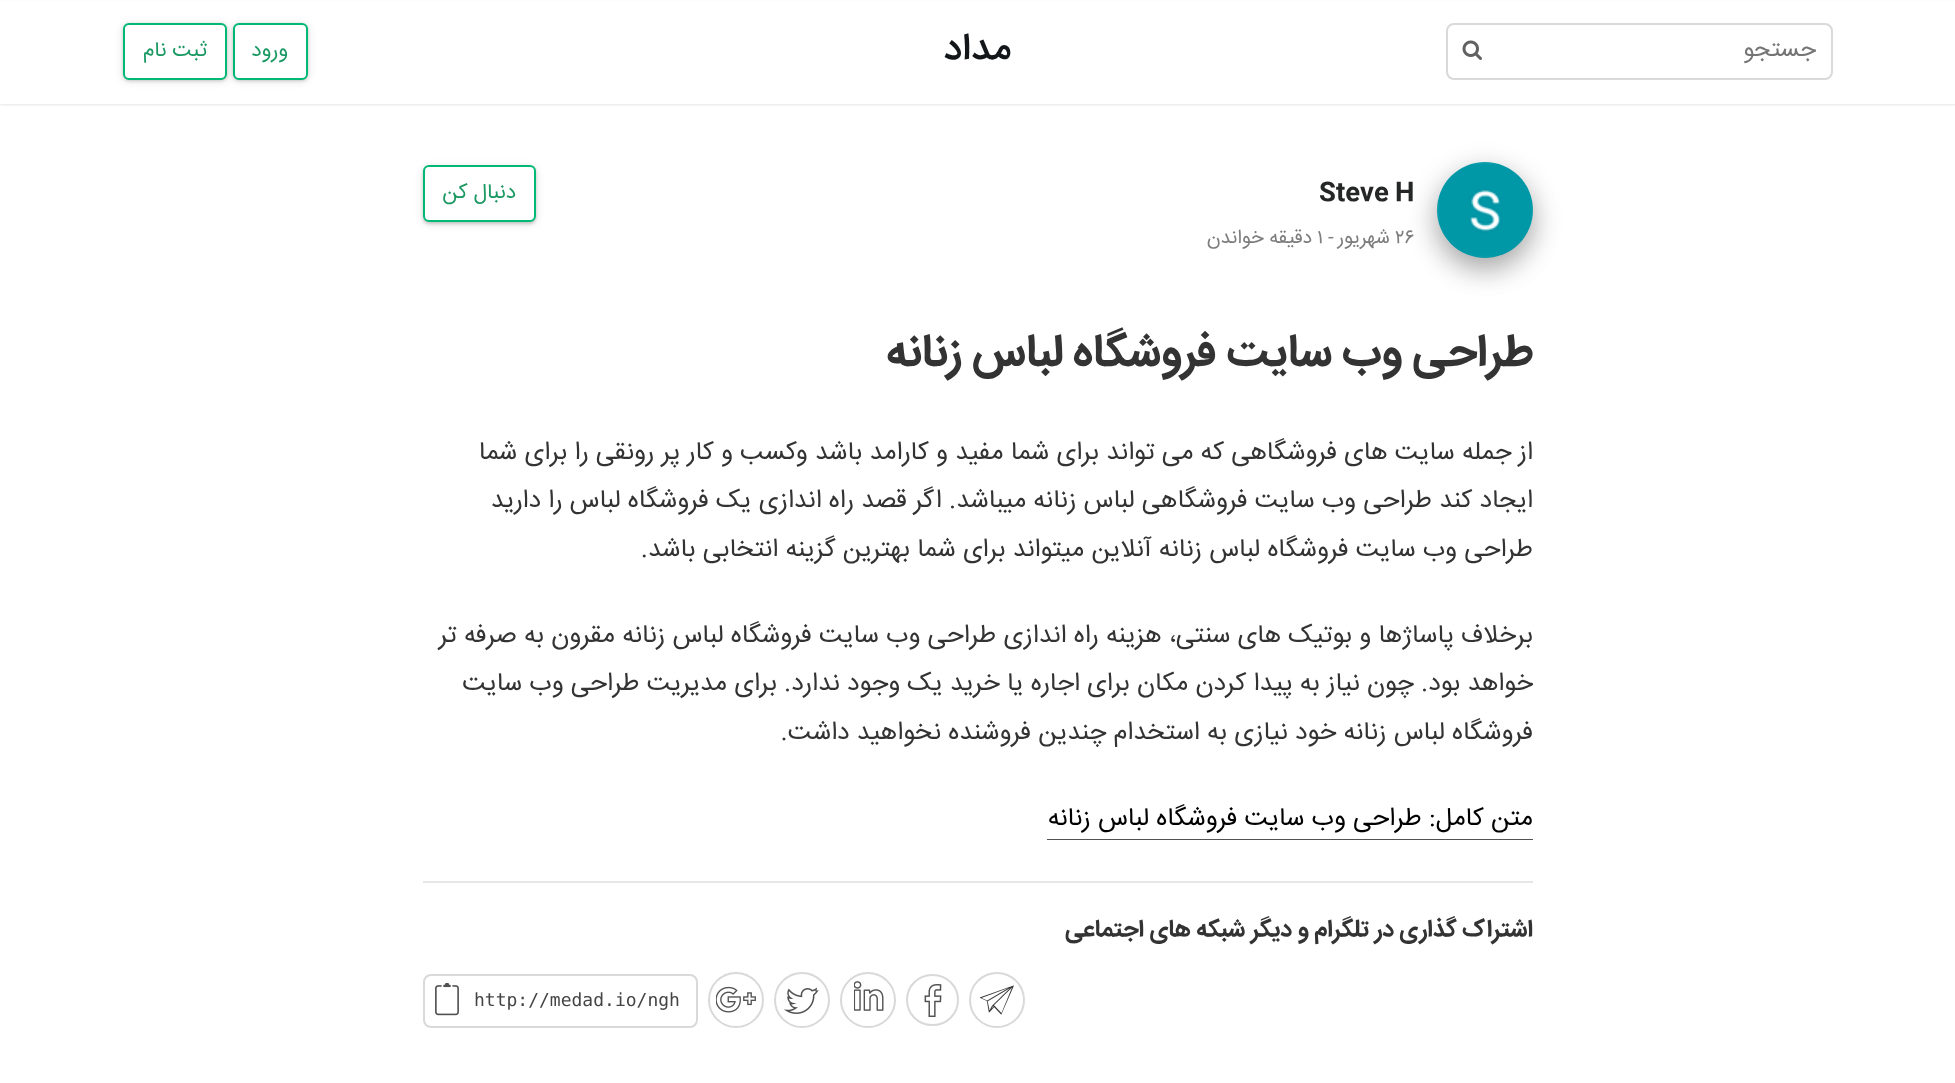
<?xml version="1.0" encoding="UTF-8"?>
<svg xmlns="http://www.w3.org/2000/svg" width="1955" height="1083">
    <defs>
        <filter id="blur1" x="-50%" y="-200%" width="200%" height="500%"><feGaussianBlur stdDeviation="1"/></filter>
        <filter id="blur2" x="-50%" y="-200%" width="200%" height="500%"><feGaussianBlur stdDeviation="4"/></filter>
        <filter id="blur3" x="-50%" y="-200%" width="200%" height="500%"><feGaussianBlur stdDeviation="1.5"/></filter>
        <filter id="blur4" x="-50%" y="-200%" width="200%" height="500%"><feGaussianBlur stdDeviation="15"/></filter>
        <filter id="blur5" x="-50%" y="-200%" width="200%" height="500%"><feGaussianBlur stdDeviation="13"/></filter>
    </defs>
    <rect width="100%" height="100%" fill="#FFFFFF"/>
    <rect x="0" y="2" width="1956" height="103" fill="#000000" fill-opacity="0.1" filter="url(#blur1)"/>
    <rect x="0" y="1" width="1955" height="103" fill="#FFFFFF"/>
    <rect x="1447" y="24" width="385" height="55" rx="7" fill="none" stroke="#D9D9D9" stroke-width="2"/>
    <text x="1816" y="56" font-family="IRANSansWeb" font-size="24" direction="rtl" fill="#757575">جستجو</text>
    <image x="1462" y="40" width="20" height="20" href="img_01.png"/>
    <text x="1011" y="59" font-family="IRANSansWeb" font-size="38" font-weight="500" direction="rtl" fill="#14171A">مداد</text>
    <rect x="233" y="24" width="75" height="57" rx="6" fill="#000000" fill-opacity="0.12" filter="url(#blur2)"/>
    <rect x="233" y="24" width="75" height="57" rx="6" fill="#000000" fill-opacity="0.16" filter="url(#blur3)"/>
    <rect x="234" y="24" width="73" height="55" rx="5" fill="#FFFFFF" stroke="#02B875" stroke-width="2"/>
    <text x="288" y="56" font-family="IRANSansWeb" font-size="21" direction="rtl" fill="#1C9963">ورود</text>
    <rect x="123" y="24" width="104" height="57" rx="6" fill="#000000" fill-opacity="0.12" filter="url(#blur2)"/>
    <rect x="123" y="24" width="104" height="57" rx="6" fill="#000000" fill-opacity="0.16" filter="url(#blur3)"/>
    <rect x="124" y="24" width="102" height="55" rx="5" fill="#FFFFFF" stroke="#02B875" stroke-width="2"/>
    <text x="207" y="56" font-family="IRANSansWeb" font-size="21" direction="rtl" fill="#1C9963">ثبت نام</text>
    <rect x="1437" y="171" width="96" height="96" rx="48" fill="#000000" fill-opacity="0.19" filter="url(#blur4)"/>
    <rect x="1437" y="174" width="96" height="96" rx="48" fill="#000000" fill-opacity="0.2" filter="url(#blur5)"/>
    <image x="1437" y="162" width="96" height="96" href="img_02.png"/>
    <text x="1319" y="200" font-family="IRANSansWeb" font-size="25.5" font-weight="700" fill="#252726">Steve H</text>
    <rect x="423" y="167" width="113" height="57" rx="6" fill="#000000" fill-opacity="0.12" filter="url(#blur2)"/>
    <rect x="423" y="167" width="113" height="57" rx="6" fill="#000000" fill-opacity="0.16" filter="url(#blur3)"/>
    <rect x="424" y="166" width="111" height="55" rx="5" fill="#FFFFFF" stroke="#02B875" stroke-width="2"/>
    <text x="516" y="198" font-family="IRANSansWeb" font-size="21" direction="rtl" fill="#1C9963">دنبال کن</text>
    <text x="1395" y="243" font-family="IRANSansWeb" font-size="19.5" fill="#7D7D7D">۲۶</text>
    <text x="1390" y="243" font-family="IRANSansWeb" font-size="19.5" direction="rtl" fill="#7D7D7D">شهریور</text>
    <text x="1328" y="243" font-family="IRANSansWeb" font-size="19.5" fill="#7D7D7D">-</text>
    <text x="1317" y="243" font-family="IRANSansWeb" font-size="19.5" fill="#7D7D7D">۱</text>
    <text x="1312" y="243" font-family="IRANSansWeb" font-size="19.5" direction="rtl" fill="#7D7D7D">دقیقه خواندن</text>
    <text x="1533" y="365" font-family="IRANSansWeb" font-size="45" font-weight="700" direction="rtl" fill="#333333">طراحی وب سایت فروشگاه لباس زنانه</text>
    <text font-family="IRANSansWeb" font-size="25.5" direction="rtl" fill="#333333">
        <tspan x="1533" y="459">از جمله سایت های فروشگاهی که می تواند برای شما مفید و کارامد باشد وکسب و کار پر رونقی را برای شما</tspan>
        <tspan x="1533" y="507">ایجاد کند طراحی وب سایت فروشگاهی لباس زنانه میباشد. اگر قصد راه اندازی یک فروشگاه لباس را دارید</tspan>
        <tspan x="1533" y="556">طراحی وب سایت فروشگاه لباس زنانه آنلاین میتواند برای شما بهترین گزینه انتخابی باشد.</tspan>
    </text>
    <text font-family="IRANSansWeb" font-size="25.5" direction="rtl" fill="#333333">
        <tspan x="1533" y="642">برخلاف پاساژها و بوتیک های سنتی، هزینه راه اندازی طراحی وب سایت فروشگاه لباس زنانه مقرون به صرفه تر</tspan>
        <tspan x="1533" y="690">خواهد بود. چون نیاز به پیدا کردن مکان برای اجاره یا خرید یک وجود ندارد. برای مدیریت طراحی وب سایت</tspan>
        <tspan x="1533" y="739">فروشگاه لباس زنانه خود نیازی به استخدام چندین فروشنده نخواهید داشت.</tspan>
    </text>
    <text x="1533" y="825" font-family="IRANSansWeb" font-size="25.5" direction="rtl" fill="#000000">متن کامل: طراحی وب سایت فروشگاه لباس زنانه</text>
    <rect x="1047" y="839" width="486" height="1" fill="#525252"/>
    <rect x="423" y="881" width="1110" height="2" fill="#E6E6E6"/>
    <text x="1533" y="936" font-family="IRANSansWeb" font-size="24" font-weight="700" direction="rtl" fill="#333333">اشتراک گذاری در تلگرام و دیگر شبکه های اجتماعی</text>
    <circle cx="997" cy="1000" r="27" fill="none" stroke="#D9D9D9" stroke-width="2"/>
    <image x="979" y="985" width="35" height="30" href="img_03.png"/>
    <rect x="907" y="975" width="51" height="50" rx="25" fill="none" stroke="#D9D9D9" stroke-width="2"/>
    <image x="924" y="984" width="18" height="33" href="img_04.png"/>
    <circle cx="868" cy="1000" r="27" fill="none" stroke="#D9D9D9" stroke-width="2"/>
    <image x="854" y="981" width="30" height="30" href="img_05.png"/>
    <circle cx="802" cy="1000" r="27" fill="none" stroke="#D9D9D9" stroke-width="2"/>
    <image x="784" y="987" width="35" height="27" href="img_06.png"/>
    <circle cx="736" cy="1000" r="27" fill="none" stroke="#D9D9D9" stroke-width="2"/>
    <image x="716" y="986" width="40" height="27" href="img_07.png"/>
    <rect x="424" y="975" width="273" height="52" rx="7" fill="none" stroke="#D9D9D9" stroke-width="2"/>
    <text x="474" y="1006" font-family="DejaVu Sans Mono" font-size="18" fill="#444444">http://medad.io/ngh</text>
    <image x="435" y="983" width="24" height="33" href="img_08.png"/>
</svg>
